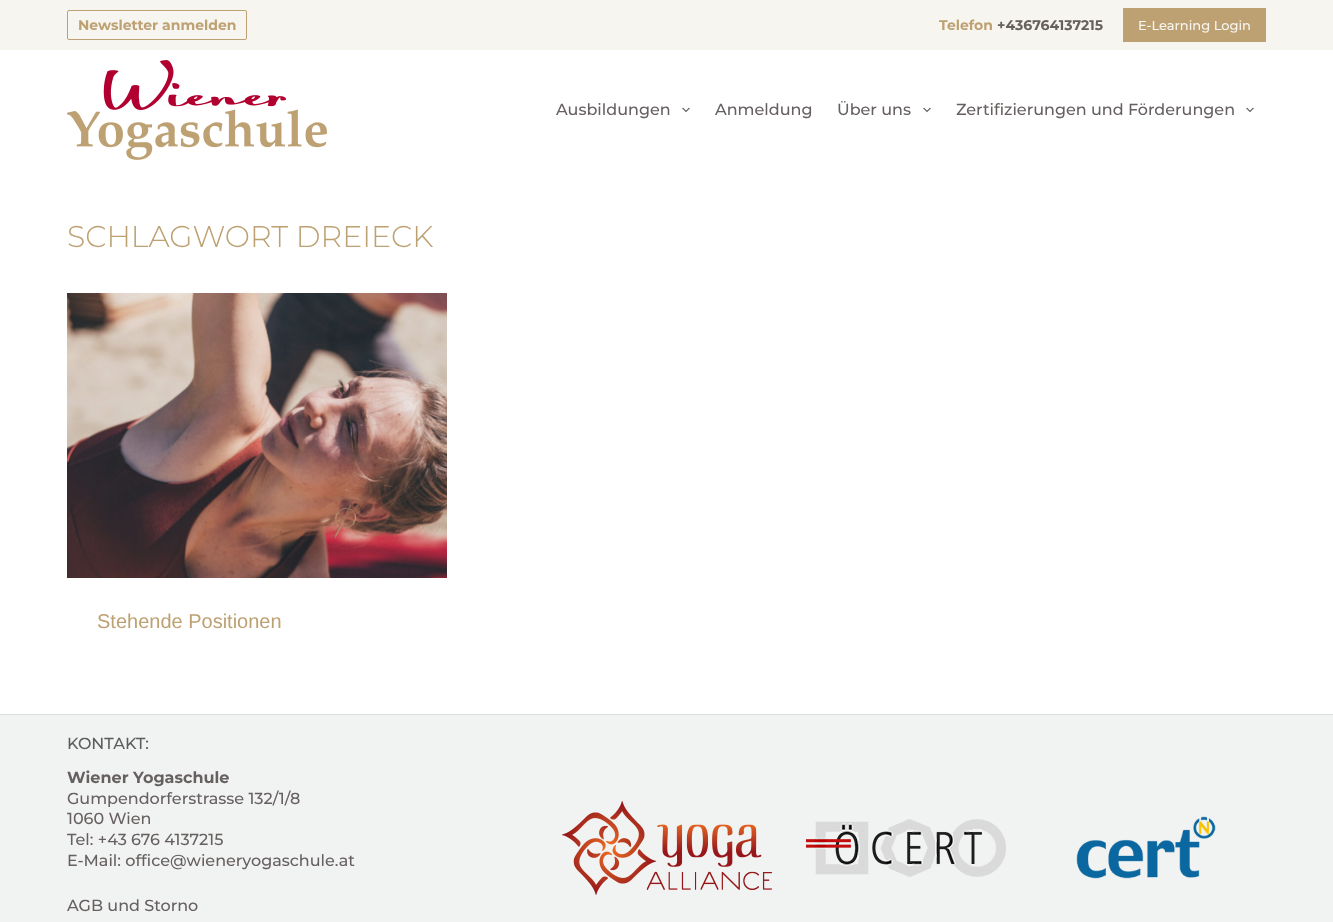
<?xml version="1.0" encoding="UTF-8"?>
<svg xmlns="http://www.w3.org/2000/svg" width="1333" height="922">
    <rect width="100%" height="100%" fill="#FFFFFF"/>
    <rect x="0" y="0" width="1333" height="50" fill="#F7F5EF"/>
    <rect x="67.5" y="10.5" width="179" height="29" rx="1.5" fill="none" stroke="#BDA173"/>
    <text x="78" y="30" font-family="Montserrat" font-size="14" font-weight="700" fill="#BDA173">Newsletter anmelden</text>
    <text x="939" y="30" font-family="Montserrat" font-size="14" font-weight="700" fill="#BDA173">Telefon</text>
    <text x="997" y="30" font-family="Montserrat" font-size="14" font-weight="700" fill="#676060">+436764137215</text>
    <rect x="1123" y="8" width="143" height="34" fill="#BDA173"/>
    <text x="1138" y="30" font-family="Montserrat" font-size="13" font-weight="500" fill="#F7F5EF">E-Learning Login</text>
    <image x="67" y="60" width="260" height="100" href="img_01.png"/>
    <text x="556" y="115" font-family="Montserrat" font-size="16" font-weight="500" fill="#676060">Ausbildungen</text>
    <image x="682" y="107" width="8" height="6" href="img_02.png"/>
    <text x="715" y="115" font-family="Montserrat" font-size="16" font-weight="500" fill="#676060">Anmeldung</text>
    <text x="837" y="115" font-family="Montserrat" font-size="16" font-weight="500" fill="#676060">Über uns</text>
    <image x="923" y="107" width="8" height="6" href="img_02.png"/>
    <text x="956" y="115" font-family="Montserrat" font-size="16" font-weight="500" fill="#676060">Zertifizierungen und Förderungen</text>
    <image x="1246" y="107" width="8" height="6" href="img_02.png"/>
    <text x="67" y="247" font-family="Montserrat" font-size="30" font-weight="300" fill="#BDA173">SCHLAGWORT DREIECK</text>
    <image x="67" y="293" width="380" height="285" href="img_03.png"/>
    <text x="97" y="628" font-family="Liberation Sans" font-size="20" fill="#BDA173">Stehende Positionen</text>
    <rect x="0" y="715" width="1333" height="207" fill="#F1F3F2"/>
    <rect x="0" y="714" width="1333" height="1" fill="#DDDDDD"/>
    <text x="67" y="749" font-family="Montserrat" font-size="16" font-weight="500" fill="#5C5C5C">KONTAKT:</text>
    <text x="67" y="783" font-family="Montserrat" font-size="16" font-weight="700" fill="#676060">Wiener Yogaschule</text>
    <text font-family="Montserrat" font-size="16" font-weight="500" fill="#676060">
        <tspan x="67" y="804">Gumpendorferstrasse 132/1/8</tspan>
        <tspan x="67" y="824">1060 Wien</tspan>
        <tspan x="67" y="845">Tel: +43 676 4137215</tspan>
        <tspan x="67" y="866">E-Mail: office@wieneryogaschule.at</tspan>
    </text>
    <text x="67" y="911" font-family="Montserrat" font-size="16" font-weight="500" fill="#676060">AGB und Storno</text>
    <image x="562" y="801" width="210" height="94" href="img_04.png"/>
    <image x="806" y="819" width="200" height="58" href="img_05.png"/>
    <image x="1076" y="816" width="140" height="63" href="img_06.png"/>
</svg>
